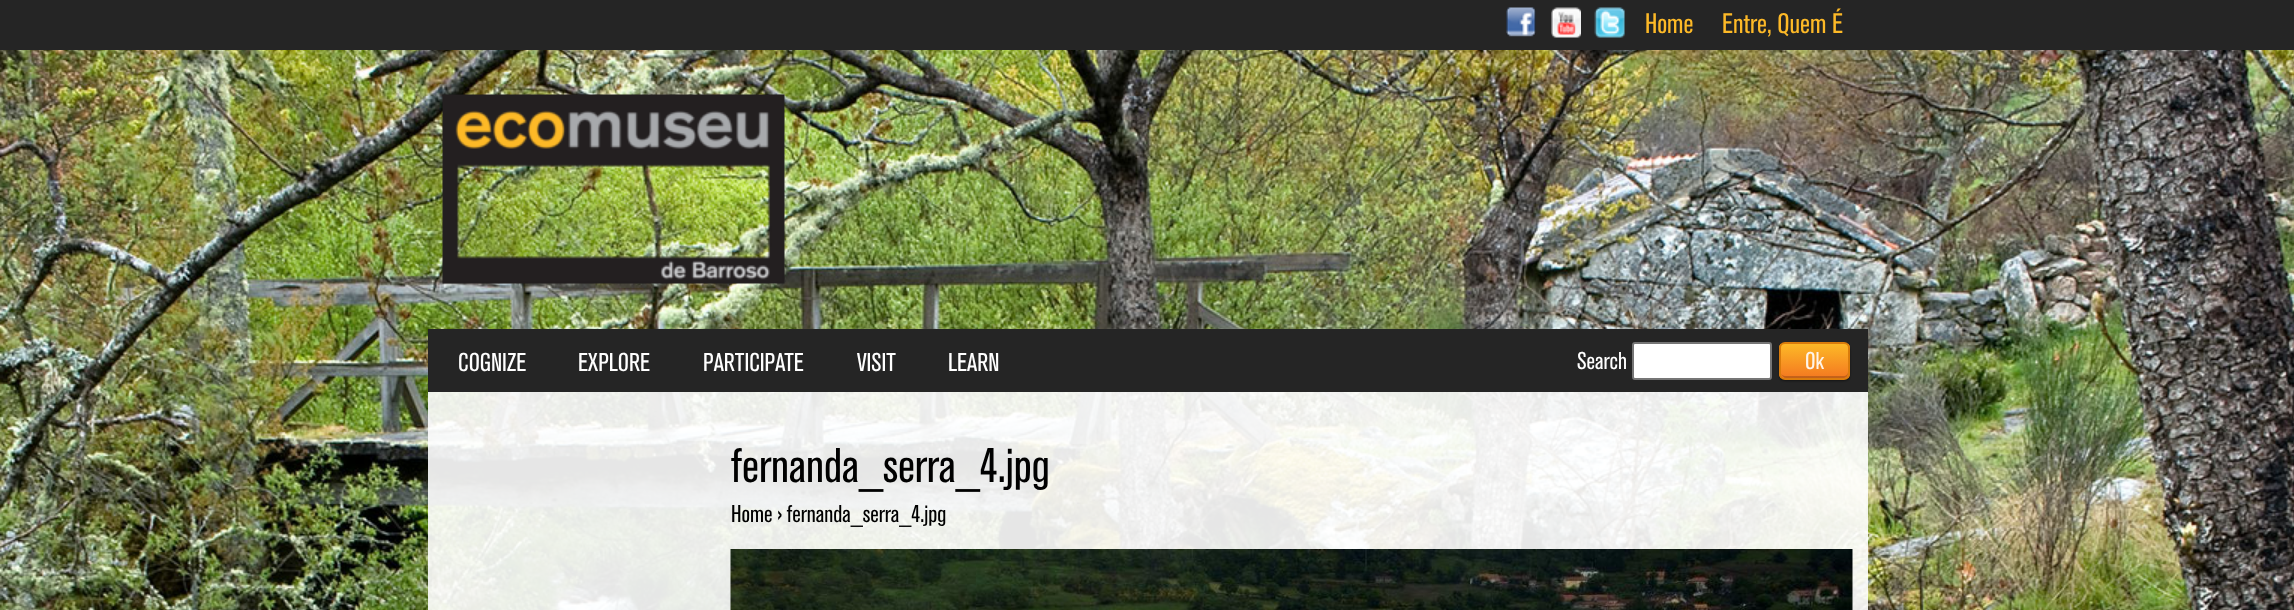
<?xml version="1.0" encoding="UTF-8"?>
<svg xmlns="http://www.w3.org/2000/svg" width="2294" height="610">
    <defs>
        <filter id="blur1" x="-50%" y="-200%" width="200%" height="500%"><feGaussianBlur stdDeviation="1"/></filter>
        <clipPath id="clip1"><rect x="1779" y="342" width="71" height="38" rx="6"/></clipPath>
        <linearGradient id="g1" gradientUnits="userSpaceOnUse" x1="1781" y1="344" x2="1781" y2="378"><stop offset="0" stop-color="#FDB927"/><stop offset="1" stop-color="#F47820"/></linearGradient>
    </defs>
    <rect width="100%" height="100%" fill="#FFFFFF"/>
    <image x="0" y="50" width="2294" height="560" href="img_01.png"/>
    <rect x="0" y="0" width="2294" height="50" fill="#252525"/>
    <image x="1506" y="7" width="30" height="30" href="img_02.png"/>
    <image x="1551" y="7" width="30" height="31" href="img_03.png"/>
    <image x="1594" y="7" width="31" height="31" href="img_04.png"/>
    <text x="1645" y="33" font-family="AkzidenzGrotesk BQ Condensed" font-size="28" font-weight="500" fill="#FDB927">Home</text>
    <text x="1722" y="33" font-family="AkzidenzGrotesk BQ Condensed" font-size="28" font-weight="500" fill="#FDB927">Entre, Quem É</text>
    <image x="442" y="94" width="343" height="190" href="img_05.png"/>
    <rect x="428" y="329" width="1440" height="63" fill="#252525"/>
    <text x="458" y="371" font-family="AkzidenzGrotesk BQ Condensed" font-size="25.5" font-weight="500" fill="#FFFFFF">COGNIZE</text>
    <text x="578" y="371" font-family="AkzidenzGrotesk BQ Condensed" font-size="25.5" font-weight="500" fill="#FFFFFF">EXPLORE</text>
    <text x="703" y="371" font-family="AkzidenzGrotesk BQ Condensed" font-size="25.5" font-weight="500" fill="#FFFFFF">PARTICIPATE</text>
    <text x="857" y="371" font-family="AkzidenzGrotesk BQ Condensed" font-size="25.5" font-weight="500" fill="#FFFFFF">VISIT</text>
    <text x="948" y="371" font-family="AkzidenzGrotesk BQ Condensed" font-size="25.5" font-weight="500" fill="#FFFFFF">LEARN</text>
    <text x="1577" y="369" font-family="AkzidenzGrotesk BQ Condensed" font-size="24" font-weight="500" fill="#FFFFFF">Search</text>
    <rect x="1633" y="343" width="138" height="36" rx="2" fill="#FFFFFF" stroke="#767676" stroke-width="2"/>
    <rect x="1779" y="344" width="71" height="37" rx="6" fill="#000000" fill-opacity="0.5" filter="url(#blur1)"/>
    <g clip-path="url(#clip1)">
        <rect x="1779" y="344" width="71" height="34" fill="url(#g1)"/>
    </g>
    <path d="M 1781 374 C 1782 376 1784 378 1786 378 H 1843 C 1846 378 1848 376 1848 373 V 372 C 1848 374 1846 376 1844 376 H 1785 C 1784 376 1782 375 1781 374 Z" fill="#000000" fill-opacity="0.2"/>
    <rect x="1780" y="343" width="69" height="36" rx="5" fill="none" stroke="#DA7C0C" stroke-width="2"/>
    <text x="1805" y="369" font-family="AkzidenzGrotesk BQ Condensed" font-size="24" font-weight="500" fill="#FEF4E9">Ok</text>
    <rect x="428" y="392" width="288" height="218" fill="#FFFFFF" fill-opacity="0.9"/>
    <rect x="716" y="392" width="1152" height="218" fill="#FFFFFF" fill-opacity="0.9"/>
    <text x="731" y="482" font-family="AkzidenzGrotesk BQ Condensed" font-size="48" font-weight="500" fill="#000000">fernanda_serra_4.jpg</text>
    <text x="731" y="522" font-family="AkzidenzGrotesk BQ Condensed" font-size="24" font-weight="500" fill="#000000">Home › fernanda_serra_4.jpg</text>
    <image x="730" y="549" width="1123" height="61" href="img_06.png"/>
</svg>
